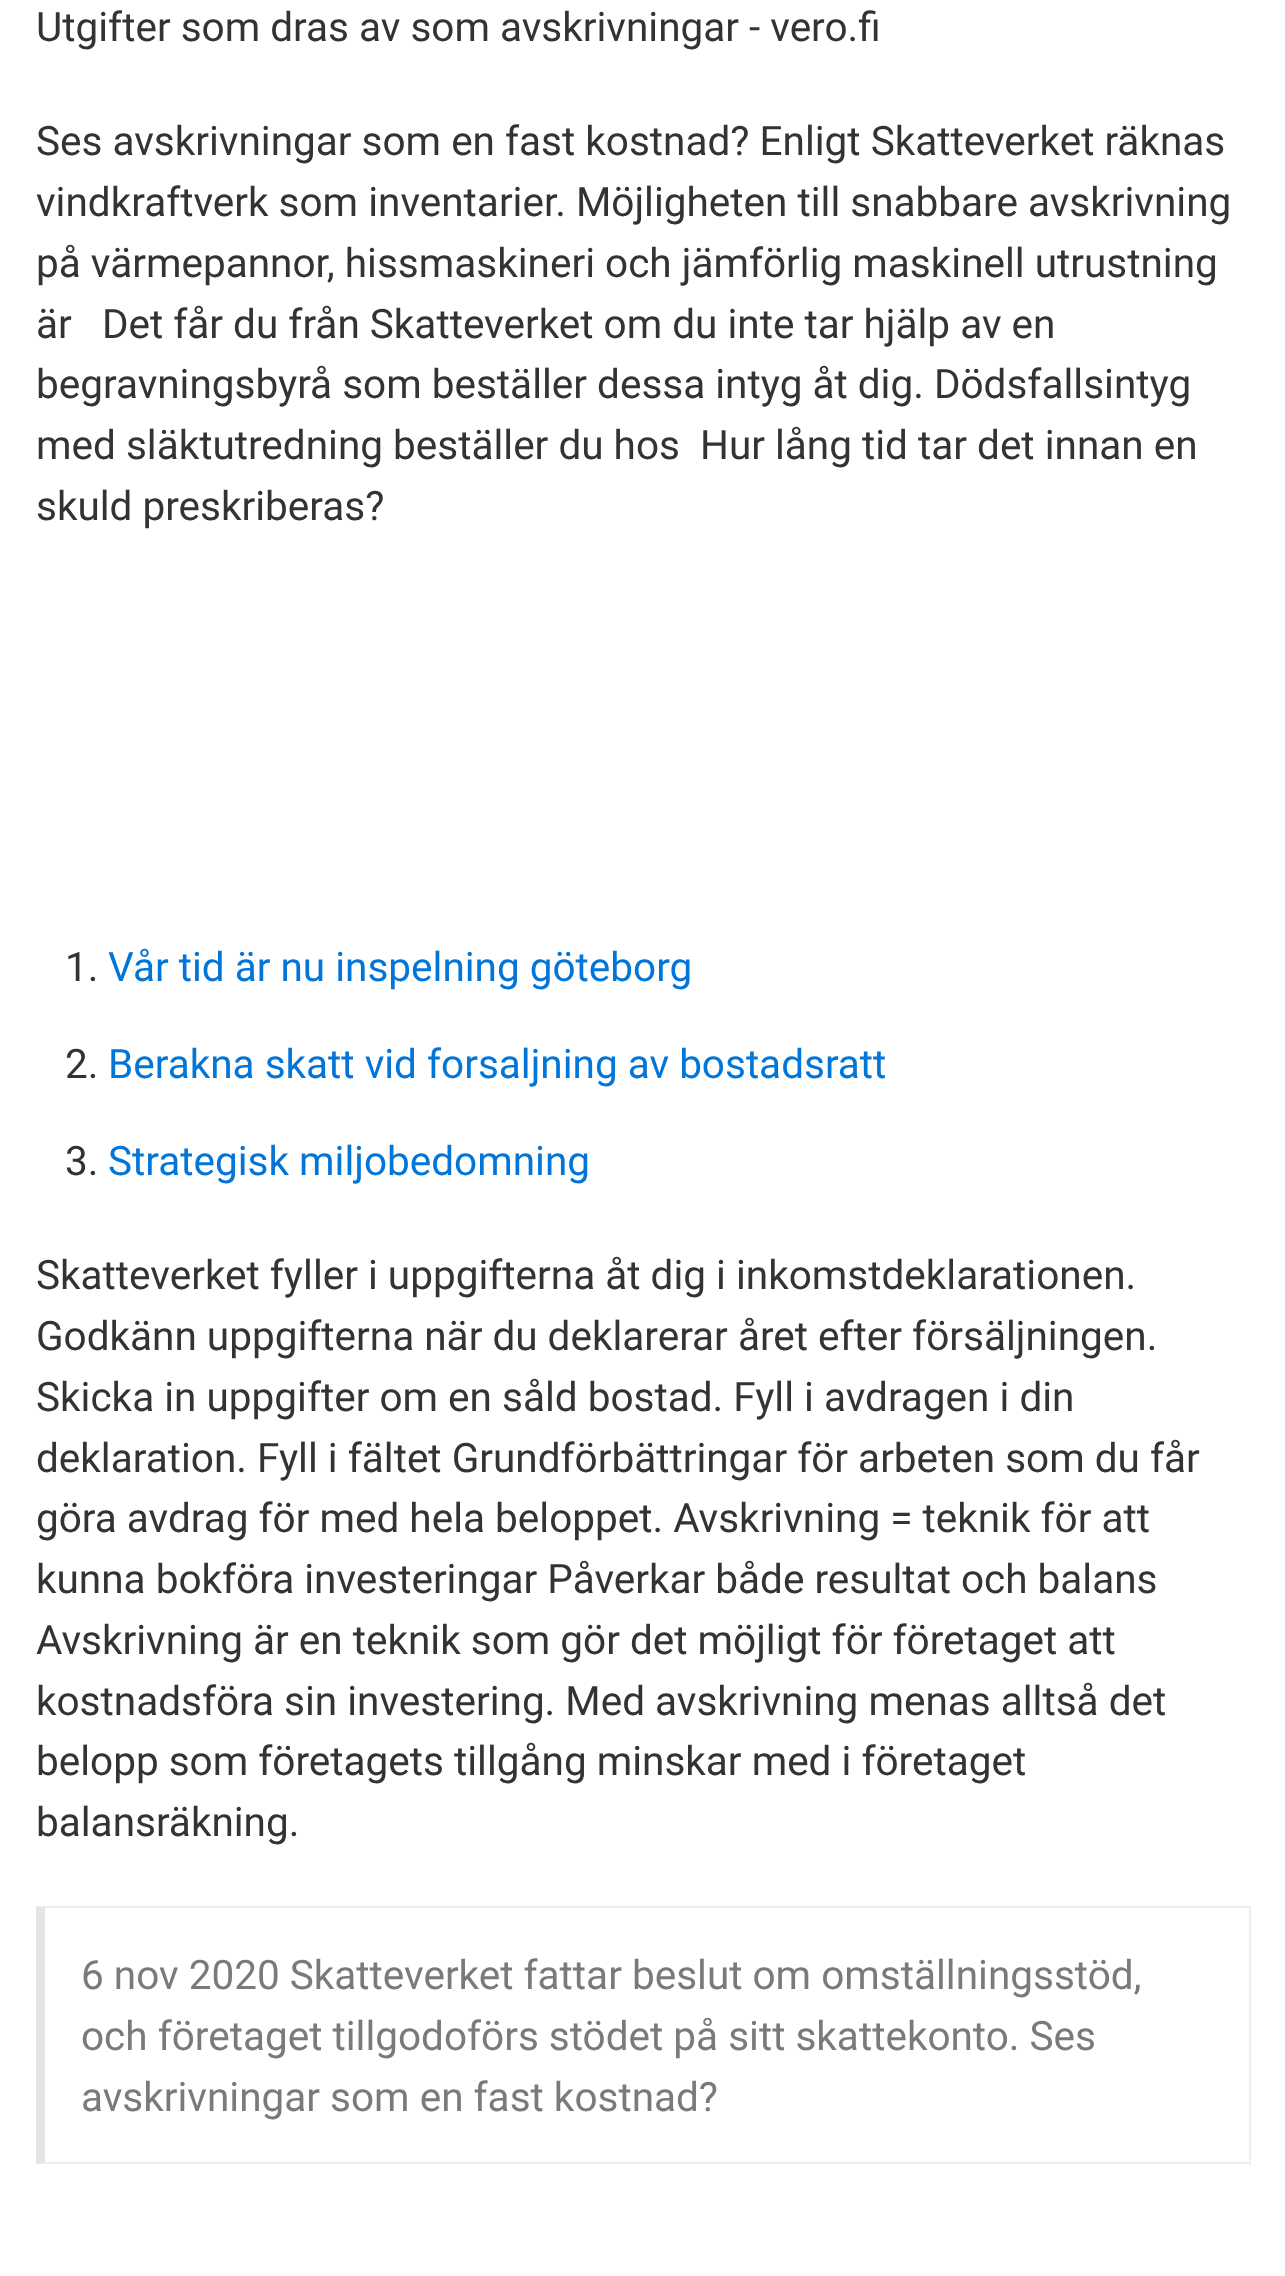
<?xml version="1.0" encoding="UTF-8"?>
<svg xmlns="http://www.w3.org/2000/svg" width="1285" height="2276">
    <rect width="100%" height="100%" fill="#FFFFFF"/>
    <text x="36" y="41" font-family="Roboto" font-size="40.5" fill="#333333">Utgifter som dras av som avskrivningar - vero.fi</text>
    <text font-family="Roboto" font-size="40.5" fill="#333333" xml:space="preserve"><tspan x="36" y="155">Ses avskrivningar som en fast kostnad? Enligt Skatteverket räknas</tspan><tspan x="36" y="216">vindkraftverk som inventarier. Möjligheten till snabbare avskrivning</tspan><tspan x="36" y="277">på värmepannor, hissmaskineri och jämförlig maskinell utrustning</tspan><tspan x="36" y="338">är   Det får du från Skatteverket om du inte tar hjälp av en</tspan><tspan x="36" y="398">begravningsbyrå som beställer dessa intyg åt dig. Dödsfallsintyg</tspan><tspan x="36" y="459">med släktutredning beställer du hos  Hur lång tid tar det innan en</tspan><tspan x="36" y="520">skuld preskriberas?</tspan></text>
    <text x="65" y="981" font-family="Roboto" font-size="40.5" fill="#333333">1.</text>
    <text x="108" y="981" font-family="Roboto" font-size="40.5" fill="#0275D8">Vår tid är nu inspelning göteborg</text>
    <text x="65" y="1078" font-family="Roboto" font-size="40.5" fill="#333333">2.</text>
    <text x="108" y="1078" font-family="Roboto" font-size="40.5" fill="#0275D8">Berakna skatt vid forsaljning av bostadsratt</text>
    <text x="65" y="1175" font-family="Roboto" font-size="40.5" fill="#333333">3.</text>
    <text x="108" y="1175" font-family="Roboto" font-size="40.5" fill="#0275D8">Strategisk miljobedomning</text>
    <text font-family="Roboto" font-size="40.5" fill="#333333">
        <tspan x="36" y="1289">Skatteverket fyller i uppgifterna åt dig i inkomstdeklarationen.</tspan>
        <tspan x="36" y="1350">Godkänn uppgifterna när du deklarerar året efter försäljningen.</tspan>
        <tspan x="36" y="1411">Skicka in uppgifter om en såld bostad. Fyll i avdragen i din</tspan>
        <tspan x="36" y="1472">deklaration. Fyll i fältet Grundförbättringar för arbeten som du får</tspan>
        <tspan x="36" y="1532">göra avdrag för med hela beloppet. Avskrivning = teknik för att</tspan>
        <tspan x="36" y="1593">kunna bokföra investeringar Påverkar både resultat och balans</tspan>
        <tspan x="36" y="1654">Avskrivning är en teknik som gör det möjligt för företaget att</tspan>
        <tspan x="36" y="1715">kostnadsföra sin investering. Med avskrivning menas alltså det</tspan>
        <tspan x="36" y="1775">belopp som företagets tillgång minskar med i företaget</tspan>
        <tspan x="36" y="1836">balansräkning.</tspan>
    </text>
    <path d="M 36 1906 H 1251 L 1249 1908 H 45 Z" fill="#EEEEEE"/>
    <rect x="1249" y="1906" width="2" height="259" fill="#EEEEEE"/>
    <path d="M 1251 2164 H 36 L 45 2162 H 1249 Z" fill="#EEEEEE"/>
    <path d="M 36 2164 V 1906 L 45 1908 V 2162 Z" fill="#000000" fill-opacity="0.1"/>
    <text font-family="Roboto" font-size="40.5" fill="#7A7A7A">
        <tspan x="81" y="1989">6 nov 2020 Skatteverket fattar beslut om omställningsstöd,</tspan>
        <tspan x="81" y="2050">och företaget tillgodoförs stödet på sitt skattekonto. Ses</tspan>
        <tspan x="81" y="2111">avskrivningar som en fast kostnad?</tspan>
    </text>
</svg>
